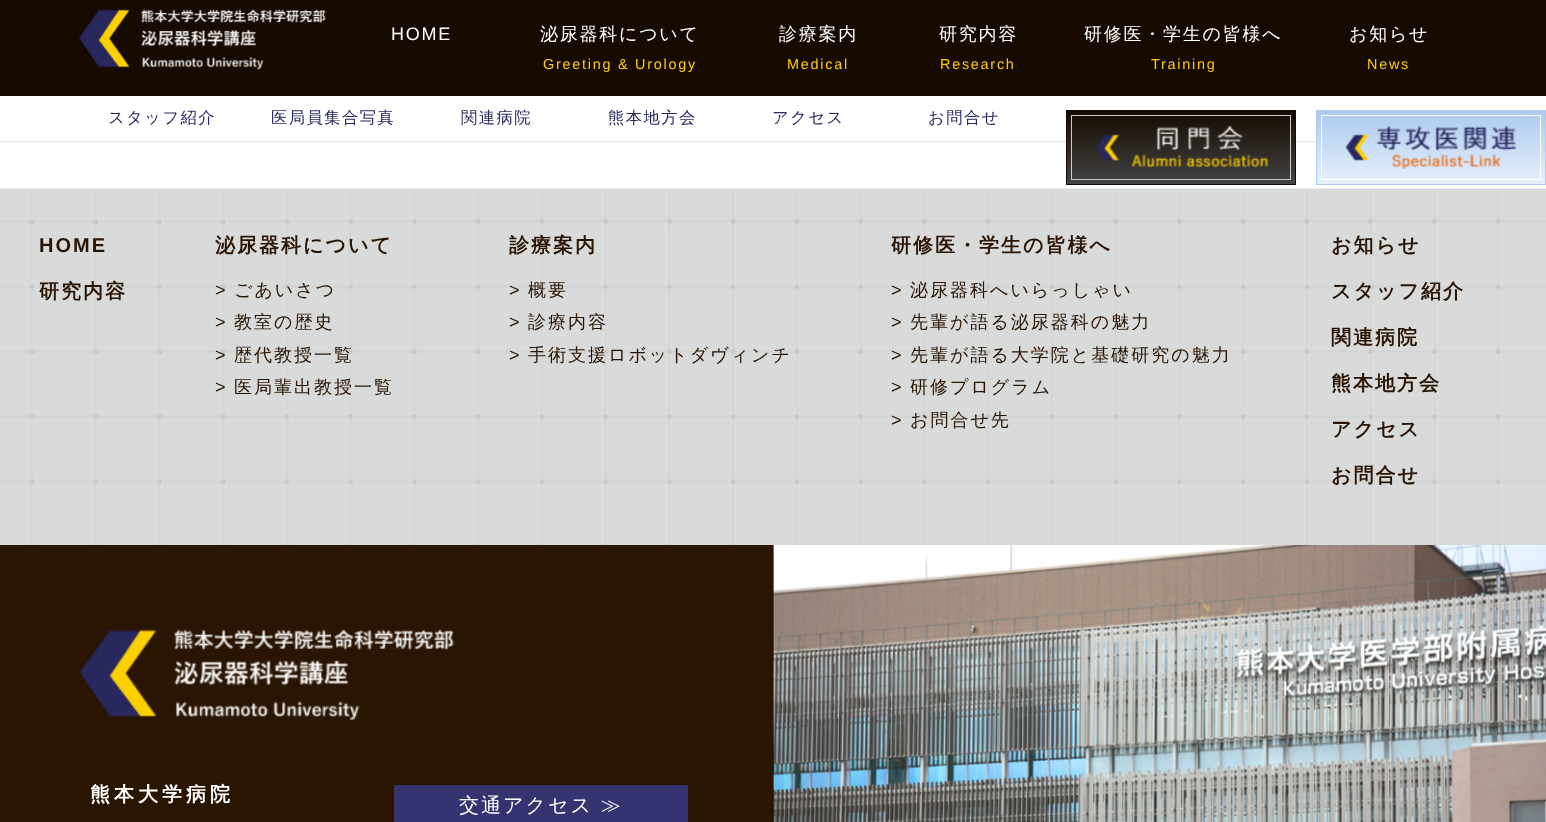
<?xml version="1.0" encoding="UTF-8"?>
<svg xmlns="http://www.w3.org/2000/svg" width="1546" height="822">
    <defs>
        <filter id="blur1" x="-50%" y="-200%" width="200%" height="500%"><feGaussianBlur stdDeviation="1"/></filter>
        <linearGradient id="g1" gradientUnits="userSpaceOnUse" x1="1181" y1="184" x2="1181" y2="111"><stop offset="0" stop-color="#434343"/><stop offset="1" stop-color="#170B01"/></linearGradient>
        <linearGradient id="g2" gradientUnits="userSpaceOnUse" x1="1431" y1="184" x2="1431" y2="111"><stop offset="0" stop-color="#E7F0FD"/><stop offset="1" stop-color="#ACCBEE"/></linearGradient>
    </defs>
    <rect width="100%" height="100%" fill="#FFFFFF"/>
    <rect x="0" y="0" width="1546" height="141" fill="#000000" fill-opacity="0.3" filter="url(#blur1)"/>
    <rect x="0" y="0" width="1546" height="96" fill="#170B01"/>
    <image x="78" y="9" width="248" height="61" href="img_01.png"/>
    <text x="391" y="40" font-family="Liberation Sans" font-size="18" letter-spacing="1.75" fill="#FFFFFF">HOME</text>
    <text x="540" y="40" font-family="WenQuanYi Zen Hei" font-size="18" font-weight="500" letter-spacing="1.75" fill="#FFFFFF">泌尿器科について</text>
    <text x="543" y="69" font-family="Liberation Sans" font-size="14.4" letter-spacing="1.75" fill="#FDD000">Greeting &amp; Urology</text>
    <text x="779" y="40" font-family="WenQuanYi Zen Hei" font-size="18" font-weight="500" letter-spacing="1.75" fill="#FFFFFF">診療案内</text>
    <text x="787" y="69" font-family="Liberation Sans" font-size="14.4" letter-spacing="1.75" fill="#FDD000">Medical</text>
    <text x="939" y="40" font-family="WenQuanYi Zen Hei" font-size="18" font-weight="500" letter-spacing="1.75" fill="#FFFFFF">研究内容</text>
    <text x="940" y="69" font-family="Liberation Sans" font-size="14.4" letter-spacing="1.75" fill="#FDD000">Research</text>
    <text x="1084" y="40" font-family="WenQuanYi Zen Hei" font-size="18" font-weight="500" letter-spacing="1.75" fill="#FFFFFF">研修医・学生の皆様へ</text>
    <text x="1151" y="69" font-family="Liberation Sans" font-size="14.4" letter-spacing="1.75" fill="#FDD000">Training</text>
    <text x="1349" y="40" font-family="WenQuanYi Zen Hei" font-size="18" font-weight="500" letter-spacing="1.75" fill="#FFFFFF">お知らせ</text>
    <text x="1367" y="69" font-family="Liberation Sans" font-size="14.4" letter-spacing="1.75" fill="#FDD000">News</text>
    <rect x="0" y="96" width="1546" height="45" fill="#FFFFFF"/>
    <text x="108" y="123" font-family="WenQuanYi Zen Hei" font-size="16.25" font-weight="500" letter-spacing="1.5" fill="#28275E">スタッフ紹介</text>
    <text x="271" y="123" font-family="WenQuanYi Zen Hei" font-size="16.25" font-weight="500" letter-spacing="1.5" fill="#28275E">医局員集合写真</text>
    <text x="461" y="123" font-family="WenQuanYi Zen Hei" font-size="16.25" font-weight="500" letter-spacing="1.5" fill="#28275E">関連病院</text>
    <text x="608" y="123" font-family="WenQuanYi Zen Hei" font-size="16.25" font-weight="500" letter-spacing="1.5" fill="#28275E">熊本地方会</text>
    <text x="772" y="123" font-family="WenQuanYi Zen Hei" font-size="16.25" font-weight="500" letter-spacing="1.5" fill="#28275E">アクセス</text>
    <text x="928" y="123" font-family="WenQuanYi Zen Hei" font-size="16.25" font-weight="500" letter-spacing="1.5" fill="#28275E">お問合せ</text>
    <rect x="1067" y="111" width="228" height="73" fill="url(#g1)"/>
    <rect x="1066.5" y="110.5" width="229" height="74" fill="none" stroke="#170B01"/>
    <image x="1095" y="125" width="174" height="43" href="img_02.png"/>
    <rect x="1071.5" y="115.5" width="219" height="64" fill="none" stroke="#CCCCCC"/>
    <rect x="1317" y="111" width="228" height="73" fill="url(#g2)"/>
    <rect x="1316.5" y="110.5" width="229" height="74" fill="none" stroke="#ACCBEE"/>
    <image x="1345" y="125" width="172" height="45" href="img_03.png"/>
    <rect x="1321.5" y="115.5" width="219" height="64" fill="none" stroke="#FFFFFF"/>
    <image x="0" y="188" width="1546" height="634" href="img_04.png"/>
    <text x="39" y="252" font-family="Liberation Sans" font-size="20" font-weight="700" letter-spacing="2" fill="#2A1402">HOME</text>
    <text x="39" y="298" font-family="WenQuanYi Zen Hei" font-size="20" font-weight="700" letter-spacing="2" fill="#2A1402">研究内容</text>
    <text x="215" y="252" font-family="WenQuanYi Zen Hei" font-size="20" font-weight="700" letter-spacing="2" fill="#2A1402">泌尿器科について</text>
    <text x="215" y="296" font-family="Liberation Sans" font-size="18" letter-spacing="2" fill="#2A1402">&gt;</text>
    <text x="234" y="296" font-family="WenQuanYi Zen Hei" font-size="18" font-weight="500" letter-spacing="2" fill="#2A1402">ごあいさつ</text>
    <text x="215" y="328" font-family="Liberation Sans" font-size="18" letter-spacing="2" fill="#2A1402">&gt;</text>
    <text x="234" y="328" font-family="WenQuanYi Zen Hei" font-size="18" font-weight="500" letter-spacing="2" fill="#2A1402">教室の歴史</text>
    <text x="215" y="361" font-family="Liberation Sans" font-size="18" letter-spacing="2" fill="#2A1402">&gt;</text>
    <text x="234" y="361" font-family="WenQuanYi Zen Hei" font-size="18" font-weight="500" letter-spacing="2" fill="#2A1402">歴代教授一覧</text>
    <text x="215" y="393" font-family="Liberation Sans" font-size="18" letter-spacing="2" fill="#2A1402">&gt;</text>
    <text x="234" y="393" font-family="WenQuanYi Zen Hei" font-size="18" font-weight="500" letter-spacing="2" fill="#2A1402">医局輩出教授一覧</text>
    <text x="509" y="252" font-family="WenQuanYi Zen Hei" font-size="20" font-weight="700" letter-spacing="2" fill="#2A1402">診療案内</text>
    <text x="509" y="296" font-family="Liberation Sans" font-size="18" letter-spacing="2" fill="#2A1402">&gt;</text>
    <text x="528" y="296" font-family="WenQuanYi Zen Hei" font-size="18" font-weight="500" letter-spacing="2" fill="#2A1402">概要</text>
    <text x="509" y="328" font-family="Liberation Sans" font-size="18" letter-spacing="2" fill="#2A1402">&gt;</text>
    <text x="528" y="328" font-family="WenQuanYi Zen Hei" font-size="18" font-weight="500" letter-spacing="2" fill="#2A1402">診療内容</text>
    <text x="509" y="361" font-family="Liberation Sans" font-size="18" letter-spacing="2" fill="#2A1402">&gt;</text>
    <text x="528" y="361" font-family="WenQuanYi Zen Hei" font-size="18" font-weight="500" letter-spacing="2" fill="#2A1402">手術支援ロボットダヴィンチ</text>
    <text x="891" y="252" font-family="WenQuanYi Zen Hei" font-size="20" font-weight="700" letter-spacing="2" fill="#2A1402">研修医・学生の皆様へ</text>
    <text x="891" y="296" font-family="Liberation Sans" font-size="18" letter-spacing="2" fill="#2A1402">&gt;</text>
    <text x="910" y="296" font-family="WenQuanYi Zen Hei" font-size="18" font-weight="500" letter-spacing="2" fill="#2A1402">泌尿器科へいらっしゃい</text>
    <text x="891" y="328" font-family="Liberation Sans" font-size="18" letter-spacing="2" fill="#2A1402">&gt;</text>
    <text x="910" y="328" font-family="WenQuanYi Zen Hei" font-size="18" font-weight="500" letter-spacing="2" fill="#2A1402">先輩が語る泌尿器科の魅力</text>
    <text x="891" y="361" font-family="Liberation Sans" font-size="18" letter-spacing="2" fill="#2A1402">&gt;</text>
    <text x="910" y="361" font-family="WenQuanYi Zen Hei" font-size="18" font-weight="500" letter-spacing="2" fill="#2A1402">先輩が語る大学院と基礎研究の魅力</text>
    <text x="891" y="393" font-family="Liberation Sans" font-size="18" letter-spacing="2" fill="#2A1402">&gt;</text>
    <text x="910" y="393" font-family="WenQuanYi Zen Hei" font-size="18" font-weight="500" letter-spacing="2" fill="#2A1402">研修プログラム</text>
    <text x="891" y="426" font-family="Liberation Sans" font-size="18" letter-spacing="2" fill="#2A1402">&gt;</text>
    <text x="910" y="426" font-family="WenQuanYi Zen Hei" font-size="18" font-weight="500" letter-spacing="2" fill="#2A1402">お問合せ先</text>
    <text x="1331" y="252" font-family="WenQuanYi Zen Hei" font-size="20" font-weight="700" letter-spacing="2" fill="#2A1402">お知らせ</text>
    <text x="1331" y="298" font-family="WenQuanYi Zen Hei" font-size="20" font-weight="700" letter-spacing="2" fill="#2A1402">スタッフ紹介</text>
    <text x="1331" y="344" font-family="WenQuanYi Zen Hei" font-size="20" font-weight="700" letter-spacing="2" fill="#2A1402">関連病院</text>
    <text x="1331" y="390" font-family="WenQuanYi Zen Hei" font-size="20" font-weight="700" letter-spacing="2" fill="#2A1402">熊本地方会</text>
    <text x="1331" y="436" font-family="WenQuanYi Zen Hei" font-size="20" font-weight="700" letter-spacing="2" fill="#2A1402">アクセス</text>
    <text x="1331" y="482" font-family="WenQuanYi Zen Hei" font-size="20" font-weight="700" letter-spacing="2" fill="#2A1402">お問合せ</text>
    <rect x="0" y="545" width="774" height="277" fill="#2A1402"/>
    <image x="79" y="629" width="376" height="92" href="img_05.png"/>
    <text x="90" y="801" font-family="WenQuanYi Zen Hei" font-size="20" font-weight="700" letter-spacing="4" fill="#FFFFFF">熊本大学病院</text>
    <rect x="394" y="785" width="294" height="37" fill="#353470"/>
    <text x="459" y="812" font-family="WenQuanYi Zen Hei" font-size="20" font-weight="500" letter-spacing="2" fill="#FFFFFF">交通アクセス ≫</text>
    <image x="773" y="545" width="773" height="277" href="img_06.png"/>
</svg>
